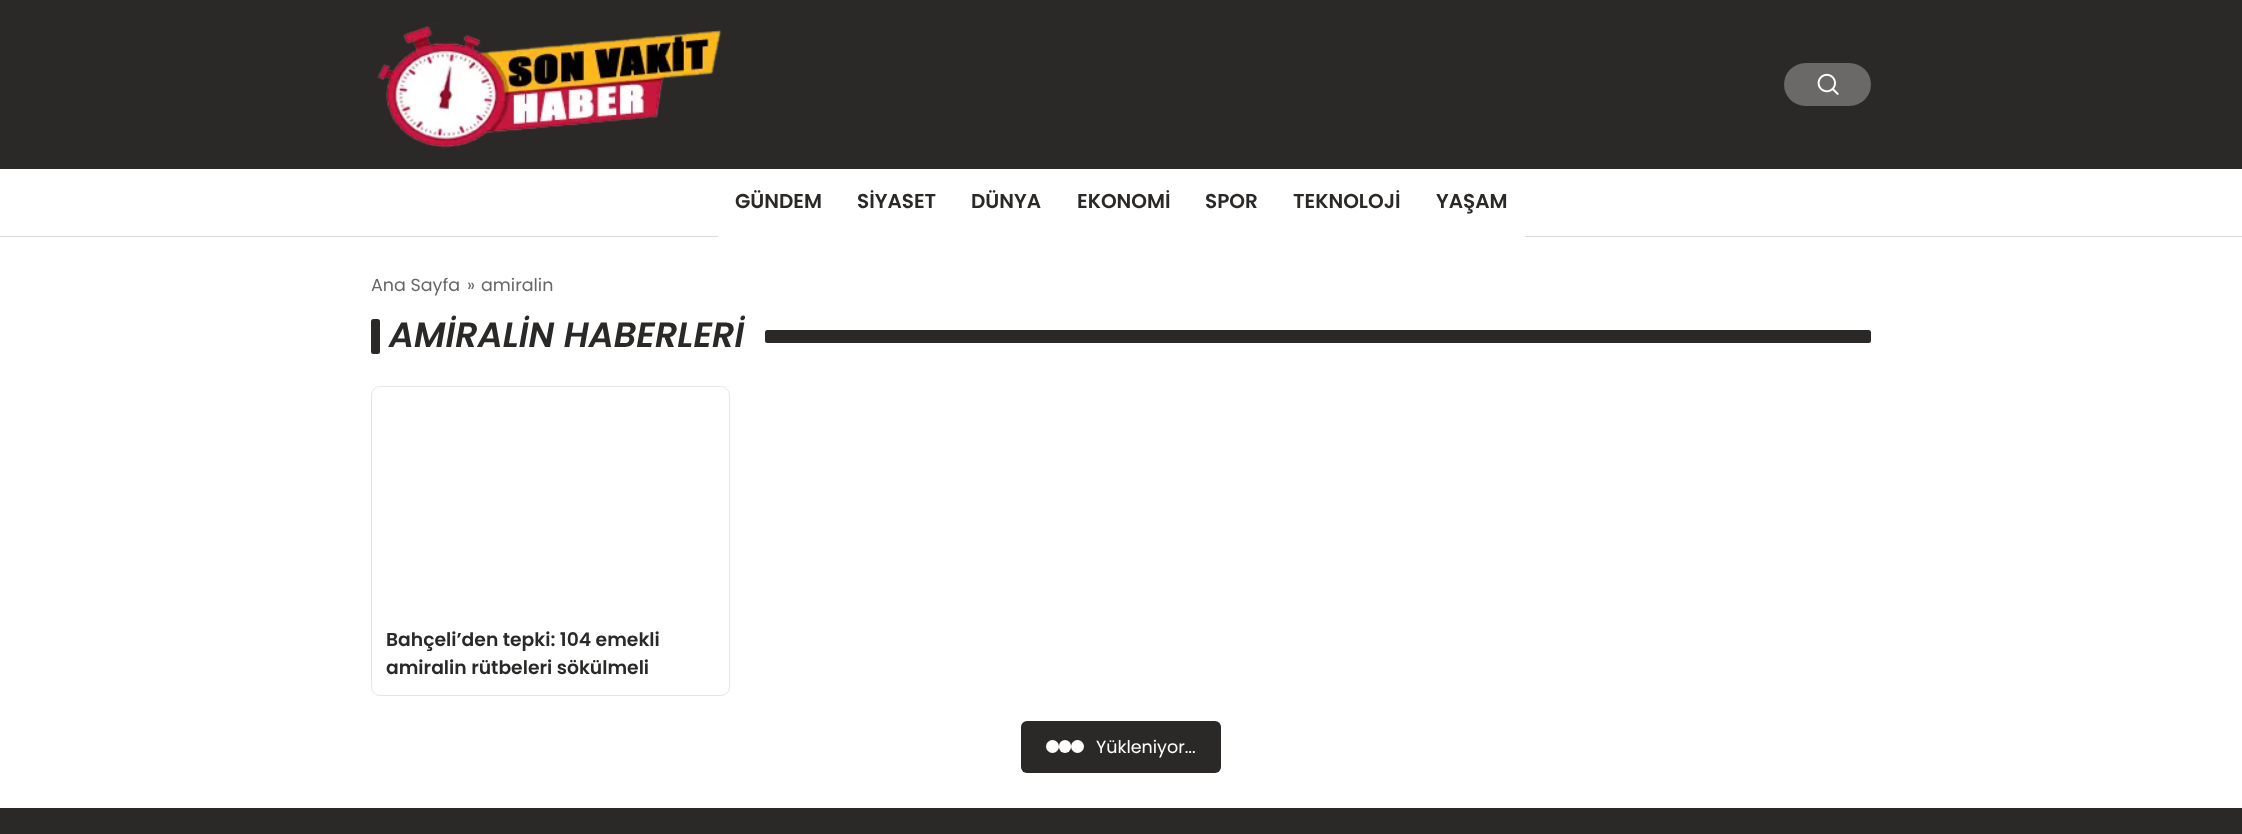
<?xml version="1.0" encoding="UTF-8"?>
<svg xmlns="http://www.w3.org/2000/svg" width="2242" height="834">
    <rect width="100%" height="100%" fill="#FFFFFF"/>
    <rect x="0" y="0" width="2242" height="169" fill="#2A2927"/>
    <image x="377" y="23" width="345" height="125" href="img_01.png"/>
    <rect x="1784" y="63" width="87" height="43" rx="21.5" fill="#6A6968"/>
    <image x="1817" y="73" width="22" height="22" href="img_02.png"/>
    <rect x="0" y="236" width="2242" height="1" fill="#D9D9D9"/>
    <rect x="718" y="236" width="807" height="1" fill="#FFFFFF"/>
    <text x="735" y="208" font-family="Poppins" font-size="20" font-weight="600" fill="#2A2927">GÜNDEM</text>
    <text x="857" y="208" font-family="Poppins" font-size="20" font-weight="600" fill="#2A2927">SİYASET</text>
    <text x="971" y="208" font-family="Poppins" font-size="20" font-weight="600" fill="#2A2927">DÜNYA</text>
    <text x="1077" y="208" font-family="Poppins" font-size="20" font-weight="600" fill="#2A2927">EKONOMİ</text>
    <text x="1205" y="208" font-family="Poppins" font-size="20" font-weight="600" fill="#2A2927">SPOR</text>
    <text x="1293" y="208" font-family="Poppins" font-size="20" font-weight="600" fill="#2A2927">TEKNOLOJİ</text>
    <text x="1436" y="208" font-family="Poppins" font-size="20" font-weight="600" fill="#2A2927">YAŞAM</text>
    <text x="371" y="291" font-family="Poppins" font-size="17.5" fill="#676767">Ana Sayfa</text>
    <text x="467" y="291" font-family="Poppins" font-size="17.5" fill="#676767">»</text>
    <text x="481" y="291" font-family="Poppins" font-size="17.5" fill="#676767">amiralin</text>
    <rect x="371" y="319" width="9" height="35" rx="2.5" fill="#2A2927"/>
    <text x="389" y="347" font-family="Poppins" font-size="35" font-weight="600" font-style="italic" fill="#2A2927">AMİRALİN HABERLERİ</text>
    <rect x="765" y="330" width="1106" height="13" rx="2.5" fill="#2A2927"/>
    <rect x="371.5" y="386.5" width="358" height="309" rx="8.5" fill="none" stroke="#E6E6E6"/>
    <text font-family="Poppins" font-size="18.75" font-weight="600" fill="#2A2927">
        <tspan x="386" y="646">Bahçeli’den tepki: 104 emekli</tspan>
        <tspan x="386" y="674">amiralin rütbeleri sökülmeli</tspan>
    </text>
    <rect x="1021" y="721" width="200" height="52" rx="6" fill="#2A2927"/>
    <circle cx="1052.5" cy="746.5" r="6.5" fill="#FFFFFF"/>
    <rect x="1059" y="740" width="12" height="13" rx="6" fill="#FFFFFF"/>
    <circle cx="1077.5" cy="746.5" r="6.5" fill="#FFFFFF"/>
    <text x="1096" y="753" font-family="Poppins" font-size="17.5" fill="#FFFFFF">Yükleniyor...</text>
    <rect x="0" y="808" width="2242" height="26" fill="#2A2927"/>
</svg>
